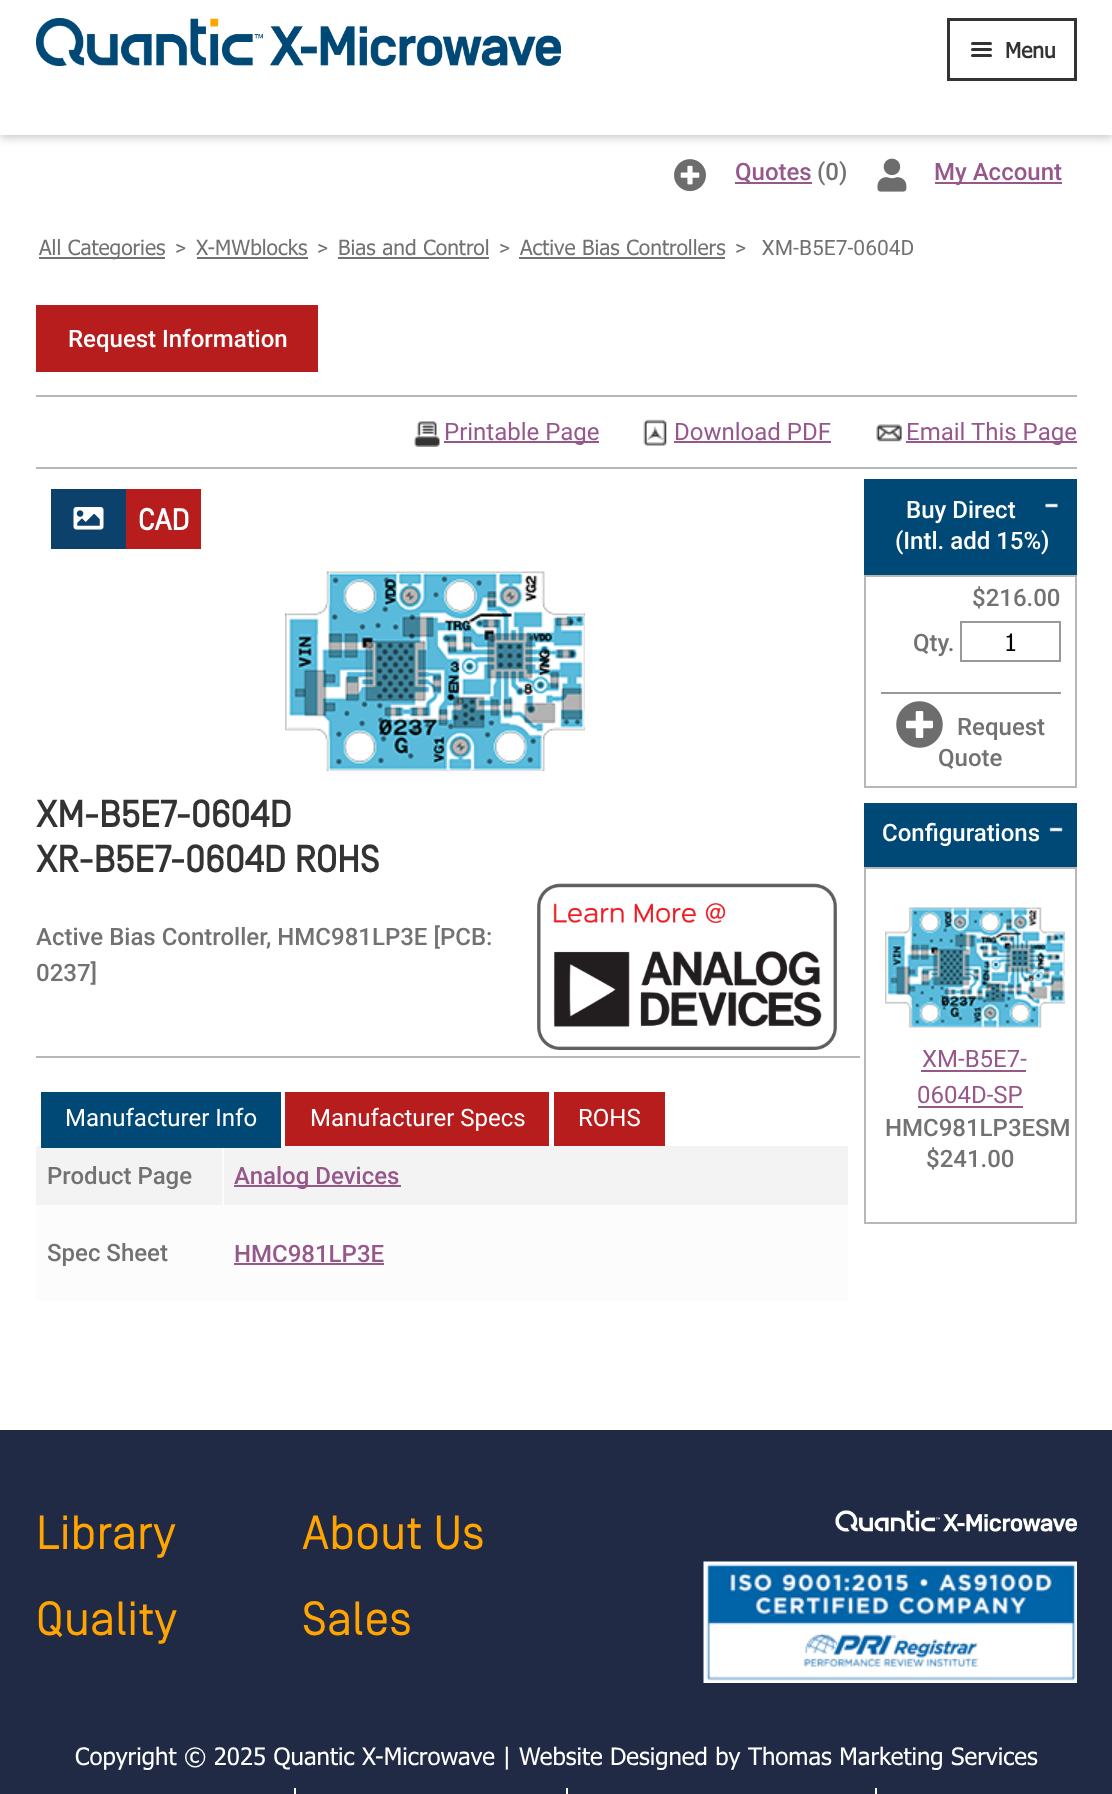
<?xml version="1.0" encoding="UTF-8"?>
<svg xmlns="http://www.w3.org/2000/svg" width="1112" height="1794">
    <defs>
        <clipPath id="clip1"><rect x="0" y="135" width="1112" height="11"/></clipPath>
        <filter id="blur1" x="-50%" y="-200%" width="200%" height="500%"><feGaussianBlur stdDeviation="4"/></filter>
    </defs>
    <rect width="100%" height="100%" fill="#FFFFFF"/>
    <g clip-path="url(#clip1)">
        <rect x="0" y="3" width="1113" height="135" fill="#CCCCCC" filter="url(#blur1)"/>
    </g>
    <image x="36" y="18" width="525" height="48" href="img_01.png"/>
    <rect x="948.5" y="19.5" width="127" height="60" fill="none" stroke="#333333" stroke-width="3"/>
    <rect x="971" y="42" width="21" height="3" rx="1.5" fill="#333333"/>
    <rect x="971" y="48" width="21" height="3" rx="1.5" fill="#333333"/>
    <text x="1005" y="58" font-family="Tahoma" font-size="21" font-weight="700" fill="#333333">Menu</text>
    <rect x="971" y="54" width="21" height="3" rx="1.5" fill="#333333"/>
    <image x="674" y="159" width="32" height="33" href="img_02.png"/>
    <rect x="735" y="182" width="77" height="2" fill="#96588A"/>
    <text x="735" y="180" font-family="Roboto" font-size="24" font-weight="500" fill="#96588A">Quotes</text>
    <text x="817" y="180" font-family="Roboto" font-size="24" font-weight="500" fill="#727272">(0)</text>
    <image x="877" y="158" width="30" height="34" href="img_03.png"/>
    <rect x="935" y="182" width="127" height="2" fill="#96588A"/>
    <text x="934" y="180" font-family="Roboto" font-size="24" font-weight="500" fill="#96588A">My Account</text>
    <rect x="39" y="257" width="126" height="2" fill="#727272"/>
    <text x="39" y="255" font-family="Tahoma" font-size="21" fill="#727272">All Categories</text>
    <text x="175" y="255" font-family="Roboto" font-size="21" fill="#727272">&gt;</text>
    <text x="196" y="255" font-family="Tahoma" font-size="21" fill="#727272">X-MWblocks</text>
    <rect x="197" y="257" width="111" height="2" fill="#727272"/>
    <text x="317" y="255" font-family="Roboto" font-size="21" fill="#727272">&gt;</text>
    <text x="338" y="255" font-family="Tahoma" font-size="21" fill="#727272">Bias and Control</text>
    <rect x="338" y="257" width="151" height="2" fill="#727272"/>
    <text x="499" y="255" font-family="Roboto" font-size="21" fill="#727272">&gt;</text>
    <text x="520" y="255" font-family="Tahoma" font-size="21" fill="#727272">Active Bias Controllers</text>
    <rect x="519" y="257" width="206" height="2" fill="#727272"/>
    <text x="735" y="255" font-family="Roboto" font-size="21" fill="#727272" xml:space="preserve">&gt;   XM-B5E7-0604D</text>
    <rect x="36" y="305" width="282" height="67" fill="#B81D1D"/>
    <text x="68" y="347" font-family="Roboto" font-size="24" font-weight="500" fill="#FFFFFF">Request Information</text>
    <rect x="36" y="395" width="1041" height="2" fill="#B7B7B7"/>
    <image x="414" y="421" width="26" height="26" href="img_04.png"/>
    <rect x="444" y="441" width="155" height="2" fill="#96588A"/>
    <text x="444" y="440" font-family="Roboto" font-size="24" fill="#96588A">Printable Page</text>
    <image x="643" y="419" width="24" height="27" href="img_05.png"/>
    <text x="674" y="440" font-family="Roboto" font-size="24" fill="#96588A">Download PDF</text>
    <rect x="674" y="441" width="157" height="2" fill="#96588A"/>
    <image x="876" y="424" width="26" height="18" href="img_06.png"/>
    <rect x="906" y="441" width="171" height="2" fill="#96588A"/>
    <text x="906" y="440" font-family="Roboto" font-size="24" fill="#96588A">Email This Page</text>
    <rect x="36" y="467" width="1041" height="2" fill="#B7B7B7"/>
    <rect x="51" y="489" width="75" height="60" fill="#0C416B"/>
    <image x="73" y="507" width="31" height="23" href="img_07.png"/>
    <rect x="126" y="489" width="75" height="60" fill="#B81D1D"/>
    <text x="138" y="530" font-family="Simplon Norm" font-size="30" font-weight="700" fill="#FFFFFF">CAD</text>
    <image x="285" y="571" width="300" height="200" href="img_08.png"/>
    <text font-family="Simplon Norm" font-size="37.5" font-weight="700" fill="#333333">
        <tspan x="36" y="827">XM-B5E7-0604D</tspan>
        <tspan x="36" y="872">XR-B5E7-0604D ROHS</tspan>
    </text>
    <text x="36" y="945" font-family="Roboto" font-size="24" font-weight="500" fill="#727272">Active Bias Controller, HMC981LP3E [PCB:</text>
    <image x="537" y="883" width="300" height="167" href="img_09.png"/>
    <text x="36" y="981" font-family="Roboto" font-size="24" font-weight="500" fill="#727272">0237]</text>
    <rect x="864" y="479" width="213" height="96" fill="#004976"/>
    <text x="906" y="518" font-family="Roboto" font-size="24" font-weight="500" fill="#FFFFFF">Buy Direct</text>
    <image x="1045" y="503" width="13" height="5" href="img_10.png"/>
    <text x="895" y="549" font-family="Roboto" font-size="24" font-weight="500" fill="#FFFFFF">(Intl. add 15%)</text>
    <rect x="865" y="576" width="211" height="211" fill="none" stroke="#B7B7B7" stroke-width="2"/>
    <text x="972" y="606" font-family="Roboto" font-size="24" font-weight="500" fill="#727272">$216.00</text>
    <text x="913" y="651" font-family="Roboto" font-size="24" font-weight="500" fill="#727272">Qty.</text>
    <rect x="961" y="622" width="99" height="39" fill="none" stroke="#999999" stroke-width="2"/>
    <text x="1004" y="651" font-family="Tahoma" font-size="24" fill="#000000">1</text>
    <rect x="881" y="692" width="180" height="2" fill="#999999"/>
    <image x="896" y="701" width="47" height="47" href="img_11.png"/>
    <text x="957" y="735" font-family="Roboto" font-size="24" font-weight="500" fill="#727272">Request</text>
    <text x="938" y="766" font-family="Roboto" font-size="24" font-weight="500" fill="#727272">Quote</text>
    <rect x="864" y="803" width="213" height="64" fill="#004976"/>
    <text x="882" y="841" font-family="Roboto" font-size="24" font-weight="500" fill="#FFFFFF">Configurations</text>
    <image x="1049" y="827" width="14" height="5" href="img_12.png"/>
    <rect x="865" y="868" width="211" height="355" fill="none" stroke="#B7B7B7" stroke-width="2"/>
    <image x="885" y="907" width="180" height="121" href="img_13.png"/>
    <text x="922" y="1067" font-family="Roboto" font-size="24" fill="#96588A">XM-B5E7-</text>
    <rect x="921" y="1070" width="105" height="2" fill="#96588A"/>
    <text x="917" y="1103" font-family="Roboto" font-size="24" fill="#96588A">0604D-SP</text>
    <rect x="918" y="1106" width="105" height="2" fill="#96588A"/>
    <text x="885" y="1136" font-family="Roboto" font-size="24" font-weight="500" fill="#727272">HMC981LP3ESM</text>
    <text x="926" y="1167" font-family="Roboto" font-size="24" font-weight="500" fill="#727272">$241.00</text>
    <rect x="36" y="1056" width="824" height="2" fill="#B7B7B7"/>
    <rect x="36" y="1146" width="812" height="59" fill="#F3F3F3"/>
    <rect x="36" y="1205" width="812" height="96" fill="#FCFCFC"/>
    <rect x="222" y="1146" width="2" height="60" fill="#FCFCFC"/>
    <rect x="41" y="1092" width="240" height="56" fill="#004976"/>
    <text x="65" y="1126" font-family="Roboto" font-size="24" fill="#FFFFFF">Manufacturer Info</text>
    <rect x="285" y="1092" width="264" height="54" fill="#B81D1D"/>
    <text x="310" y="1126" font-family="Roboto" font-size="24" fill="#FFFFFF">Manufacturer Specs</text>
    <rect x="554" y="1092" width="111" height="54" fill="#B81D1D"/>
    <text x="578" y="1126" font-family="Roboto" font-size="24" fill="#FFFFFF">ROHS</text>
    <text x="47" y="1184" font-family="Roboto" font-size="24" font-weight="500" fill="#727272">Product Page</text>
    <rect x="234" y="1185" width="167" height="2" fill="#96588A"/>
    <text x="234" y="1184" font-family="Roboto" font-size="24" font-weight="500" fill="#96588A">Analog Devices</text>
    <text x="47" y="1261" font-family="Roboto" font-size="24" font-weight="500" fill="#727272">Spec Sheet</text>
    <rect x="222" y="1301" width="2" height="1" fill="#FCFCFC"/>
    <text x="234" y="1262" font-family="Roboto" font-size="24" font-weight="500" fill="#96588A">HMC981LP3E</text>
    <rect x="234" y="1263" width="150" height="2" fill="#96588A"/>
    <rect x="0" y="1430" width="1112" height="364" fill="#202A44"/>
    <text font-family="Simplon Norm" font-size="48" fill="#FFA400">
        <tspan x="36" y="1549">Library</tspan>
        <tspan x="36" y="1635">Quality</tspan>
    </text>
    <text font-family="Simplon Norm" font-size="48" fill="#FFA400">
        <tspan x="302" y="1549">About Us</tspan>
        <tspan x="302" y="1635">Sales</tspan>
    </text>
    <image x="835" y="1510" width="242" height="22" href="img_14.png"/>
    <image x="703" y="1561" width="374" height="122" href="img_15.png"/>
    <text x="75" y="1765" font-family="Tahoma" font-size="24" fill="#FFFFFF">Copyright © 2025 Quantic X-Microwave | Website Designed by Thomas Marketing Services</text>
    <rect x="294" y="1788" width="2" height="6" fill="#FFFFFF"/>
    <rect x="566" y="1788" width="2" height="6" fill="#FFFFFF"/>
    <rect x="875" y="1788" width="2" height="6" fill="#FFFFFF"/>
</svg>
